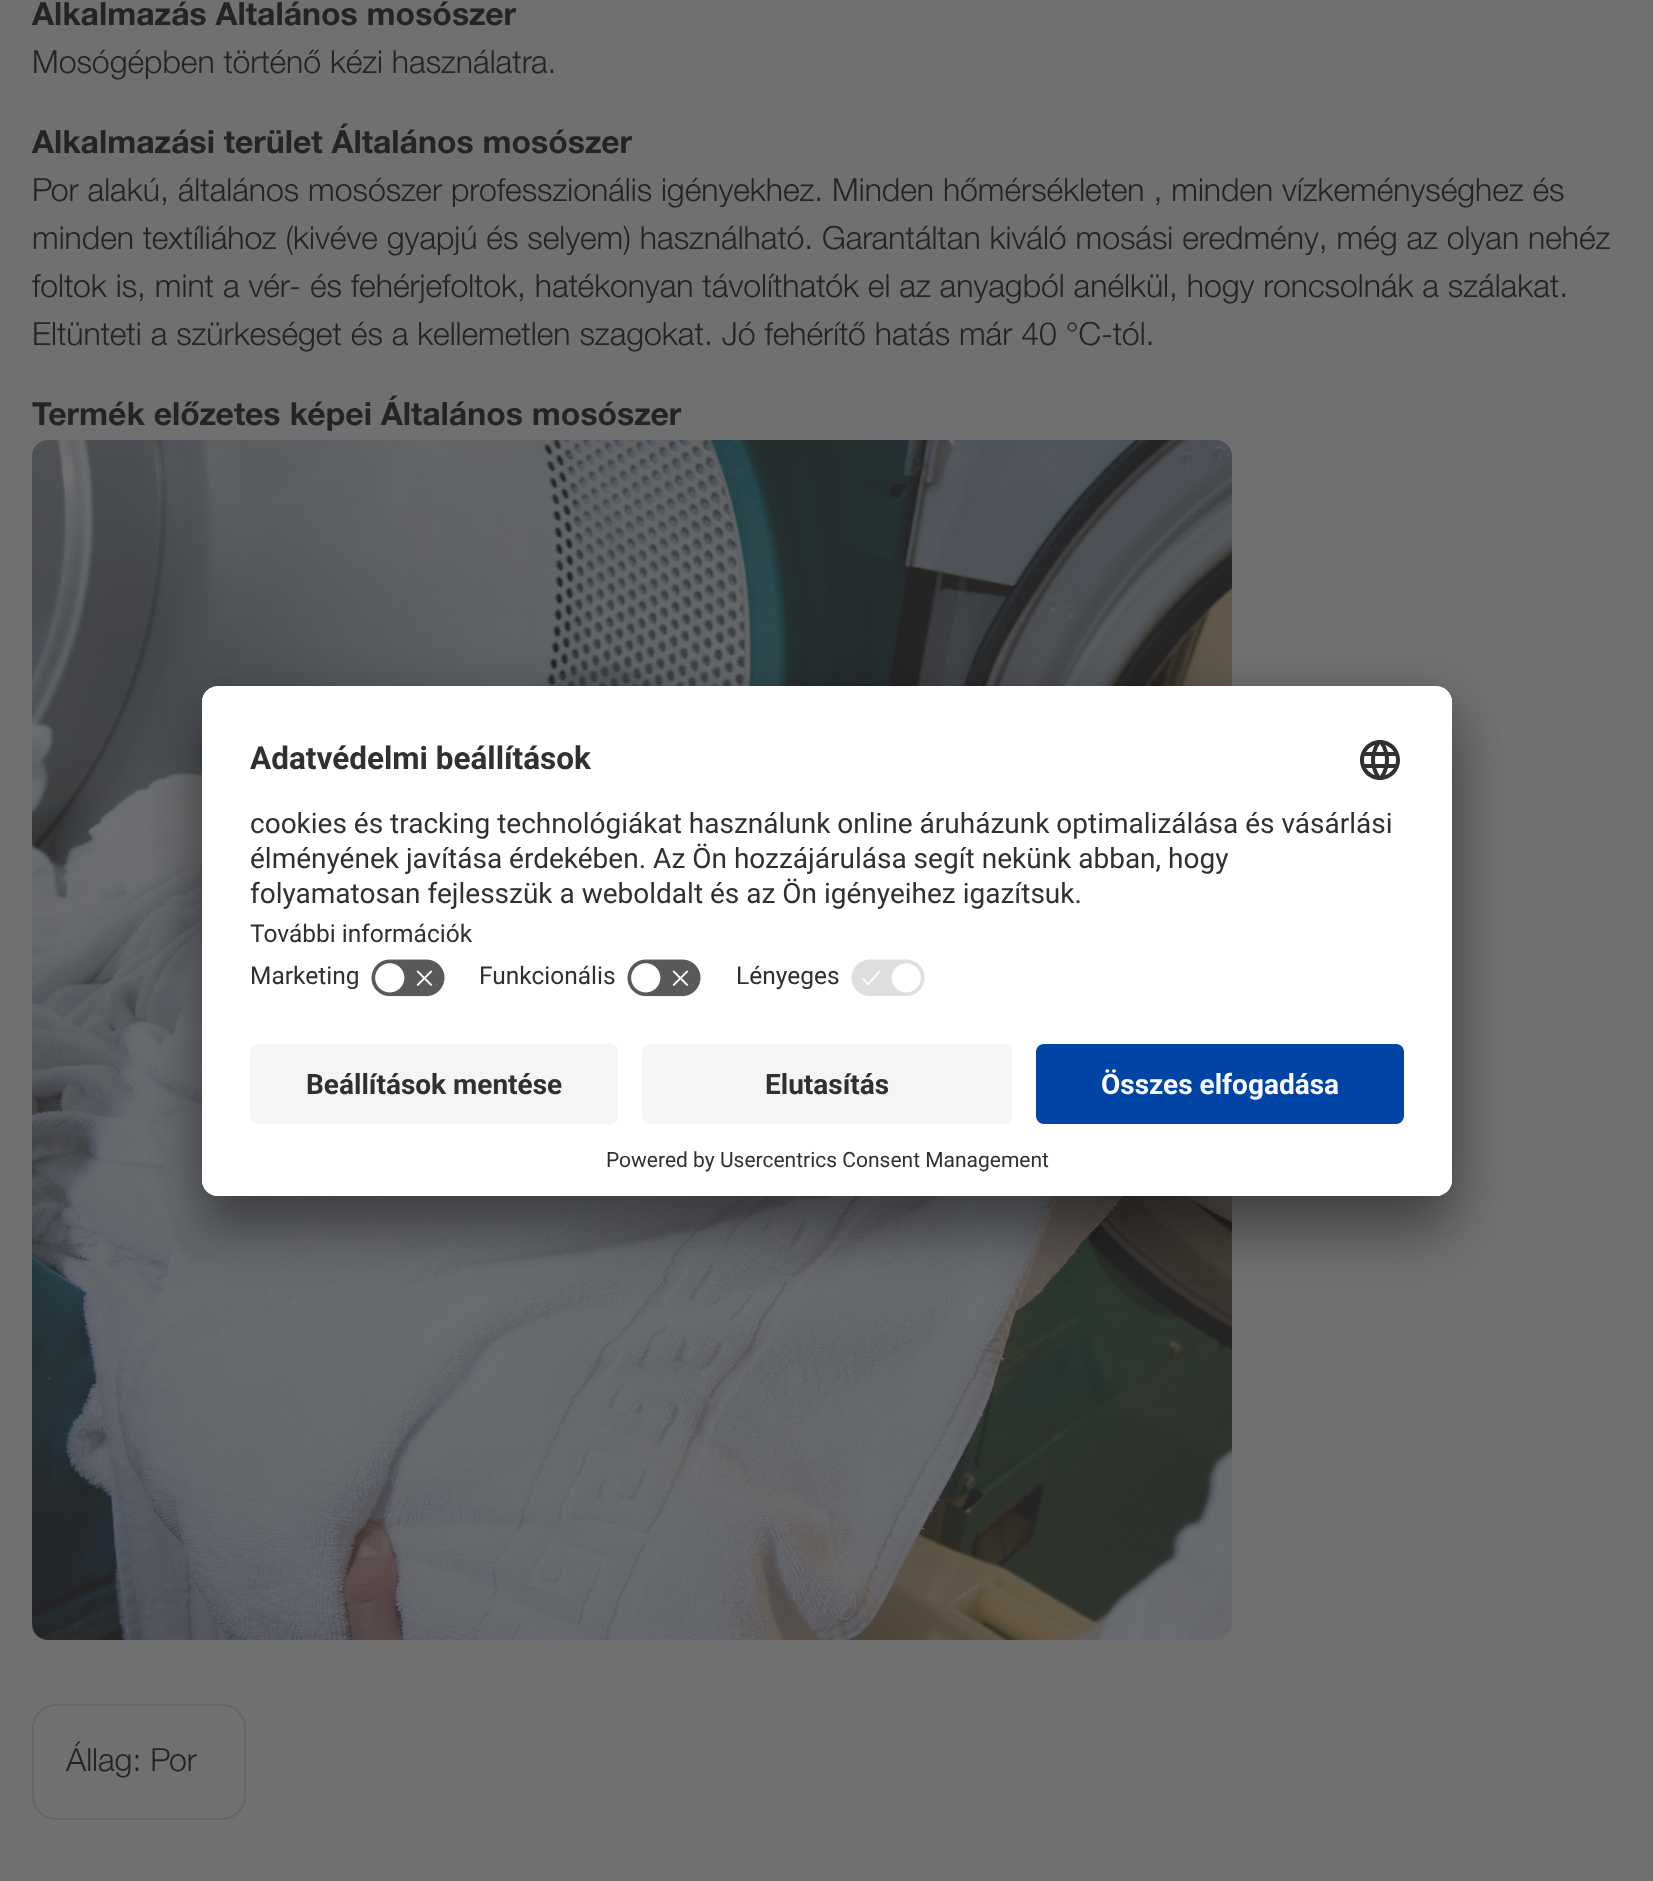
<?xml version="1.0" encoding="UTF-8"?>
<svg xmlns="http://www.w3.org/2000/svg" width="1653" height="1881">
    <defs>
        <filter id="blur1" x="-50%" y="-200%" width="200%" height="500%"><feGaussianBlur stdDeviation="28"/></filter>
        <filter id="blur2" x="-50%" y="-200%" width="200%" height="500%"><feGaussianBlur stdDeviation="26"/></filter>
        <clipPath id="clip1"><rect x="202" y="686" width="1250" height="510" rx="16"/></clipPath>
        <clipPath id="clip2"><path d="M 218 686 H 1436 C 1445 686 1452 693 1452 702 V 1028 H 202 V 702 C 202 693 209 686 218 686 Z"/></clipPath>
    </defs>
    <rect width="100%" height="100%" fill="#707070"/>
    <text x="32" y="25" font-family="'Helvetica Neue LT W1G'" font-size="32" font-weight="700" fill="#242424">Alkalmazás Általános mosószer</text>
    <text x="32" y="73" font-family="'Helvetica Neue LT W1G'" font-size="32" font-weight="300" fill="#242424">Mosógépben történő kézi használatra.</text>
    <text x="32" y="153" font-family="'Helvetica Neue LT W1G'" font-size="32" font-weight="700" fill="#242424">Alkalmazási terület Általános mosószer</text>
    <text font-family="'Helvetica Neue LT W1G'" font-size="32" font-weight="300" fill="#242424">
        <tspan x="32" y="201">Por alakú, általános mosószer professzionális igényekhez. Minden hőmérsékleten , minden vízkeménységhez és</tspan>
        <tspan x="32" y="249">minden textíliához (kivéve gyapjú és selyem) használható. Garantáltan kiváló mosási eredmény, még az olyan nehéz</tspan>
        <tspan x="32" y="297">foltok is, mint a vér- és fehérjefoltok, hatékonyan távolíthatók el az anyagból anélkül, hogy roncsolnák a szálakat.</tspan>
        <tspan x="32" y="345">Eltünteti a szürkeséget és a kellemetlen szagokat. Jó fehérítő hatás már 40 °C-tól.</tspan>
    </text>
    <text x="32" y="425" font-family="'Helvetica Neue LT W1G'" font-size="32" font-weight="700" fill="#242424">Termék előzetes képei Általános mosószer</text>
    <image x="32" y="440" width="1200" height="1200" href="img_01.png"/>
    <rect x="33" y="1705" width="212" height="114" rx="23" fill="none" stroke="#656565" stroke-width="2"/>
    <text x="66" y="1771" font-family="'Helvetica Neue LT W1G'" font-size="32" font-weight="300" fill="#242424">Állag: Por</text>
    <rect x="202" y="726" width="1250" height="510" rx="16" fill="#000000" fill-opacity="0.3" filter="url(#blur1)"/>
    <rect x="202" y="696" width="1250" height="510" rx="16" fill="#000000" fill-opacity="0.22" filter="url(#blur2)"/>
    <rect x="202" y="686" width="1250" height="510" rx="16" fill="#FFFFFF"/>
    <g clip-path="url(#clip1)">
        <g clip-path="url(#clip2)">
            <rect x="202" y="688" width="1250" height="340" fill="#FFFFFF"/>
            <rect x="202" y="688" width="1250" height="260" fill="#FFFFFF"/>
        </g>
    </g>
    <text x="250" y="769" font-family="Roboto" font-size="31.5" font-weight="700" fill="#303030">Adatvédelmi beállítások</text>
    <image x="1360" y="740" width="40" height="40" href="img_02.png"/>
    <text font-family="Roboto" font-size="28" fill="#303030">
        <tspan x="250" y="833">cookies és tracking technológiákat használunk online áruházunk optimalizálása és vásárlási</tspan>
        <tspan x="250" y="868">élményének javítása érdekében. Az Ön hozzájárulása segít nekünk abban, hogy</tspan>
        <tspan x="250" y="903">folyamatosan fejlesszük a weboldalt és az Ön igényeihez igazítsuk.</tspan>
    </text>
    <text font-family="Roboto" font-size="24.5" fill="#303030">
        <tspan x="250" y="942">További információk</tspan>
        <tspan x="250" y="984">Marketing</tspan>
    </text>
    <image x="371" y="959" width="74" height="38" href="img_03.png"/>
    <text x="479" y="984" font-family="Roboto" font-size="24.5" fill="#303030">Funkcionális</text>
    <image x="627" y="959" width="74" height="38" href="img_03.png"/>
    <text x="736" y="984" font-family="Roboto" font-size="24.5" fill="#303030">Lényeges</text>
    <image x="851" y="959" width="74" height="37" href="img_04.png"/>
    <path d="M 202 1028 H 1452 V 1180 C 1452 1189 1445 1196 1436 1196 H 218 C 209 1196 202 1189 202 1180 Z" fill="#FFFFFF"/>
    <rect x="250" y="1044" width="368" height="80" rx="8" fill="#F5F5F5"/>
    <text x="306" y="1094" font-family="Roboto" font-size="28" font-weight="700" fill="#303030">Beállítások mentése</text>
    <rect x="642" y="1044" width="370" height="80" rx="8" fill="#F5F5F5"/>
    <text x="765" y="1094" font-family="Roboto" font-size="28" font-weight="700" fill="#303030">Elutasítás</text>
    <rect x="1036" y="1044" width="368" height="80" rx="8" fill="#0045A5"/>
    <text x="1101" y="1094" font-family="Roboto" font-size="28" font-weight="700" fill="#FAFAFA">Összes elfogadása</text>
    <text x="606" y="1167" font-family="Roboto" font-size="21" fill="#303030">Powered by Usercentrics Consent Management</text>
</svg>
